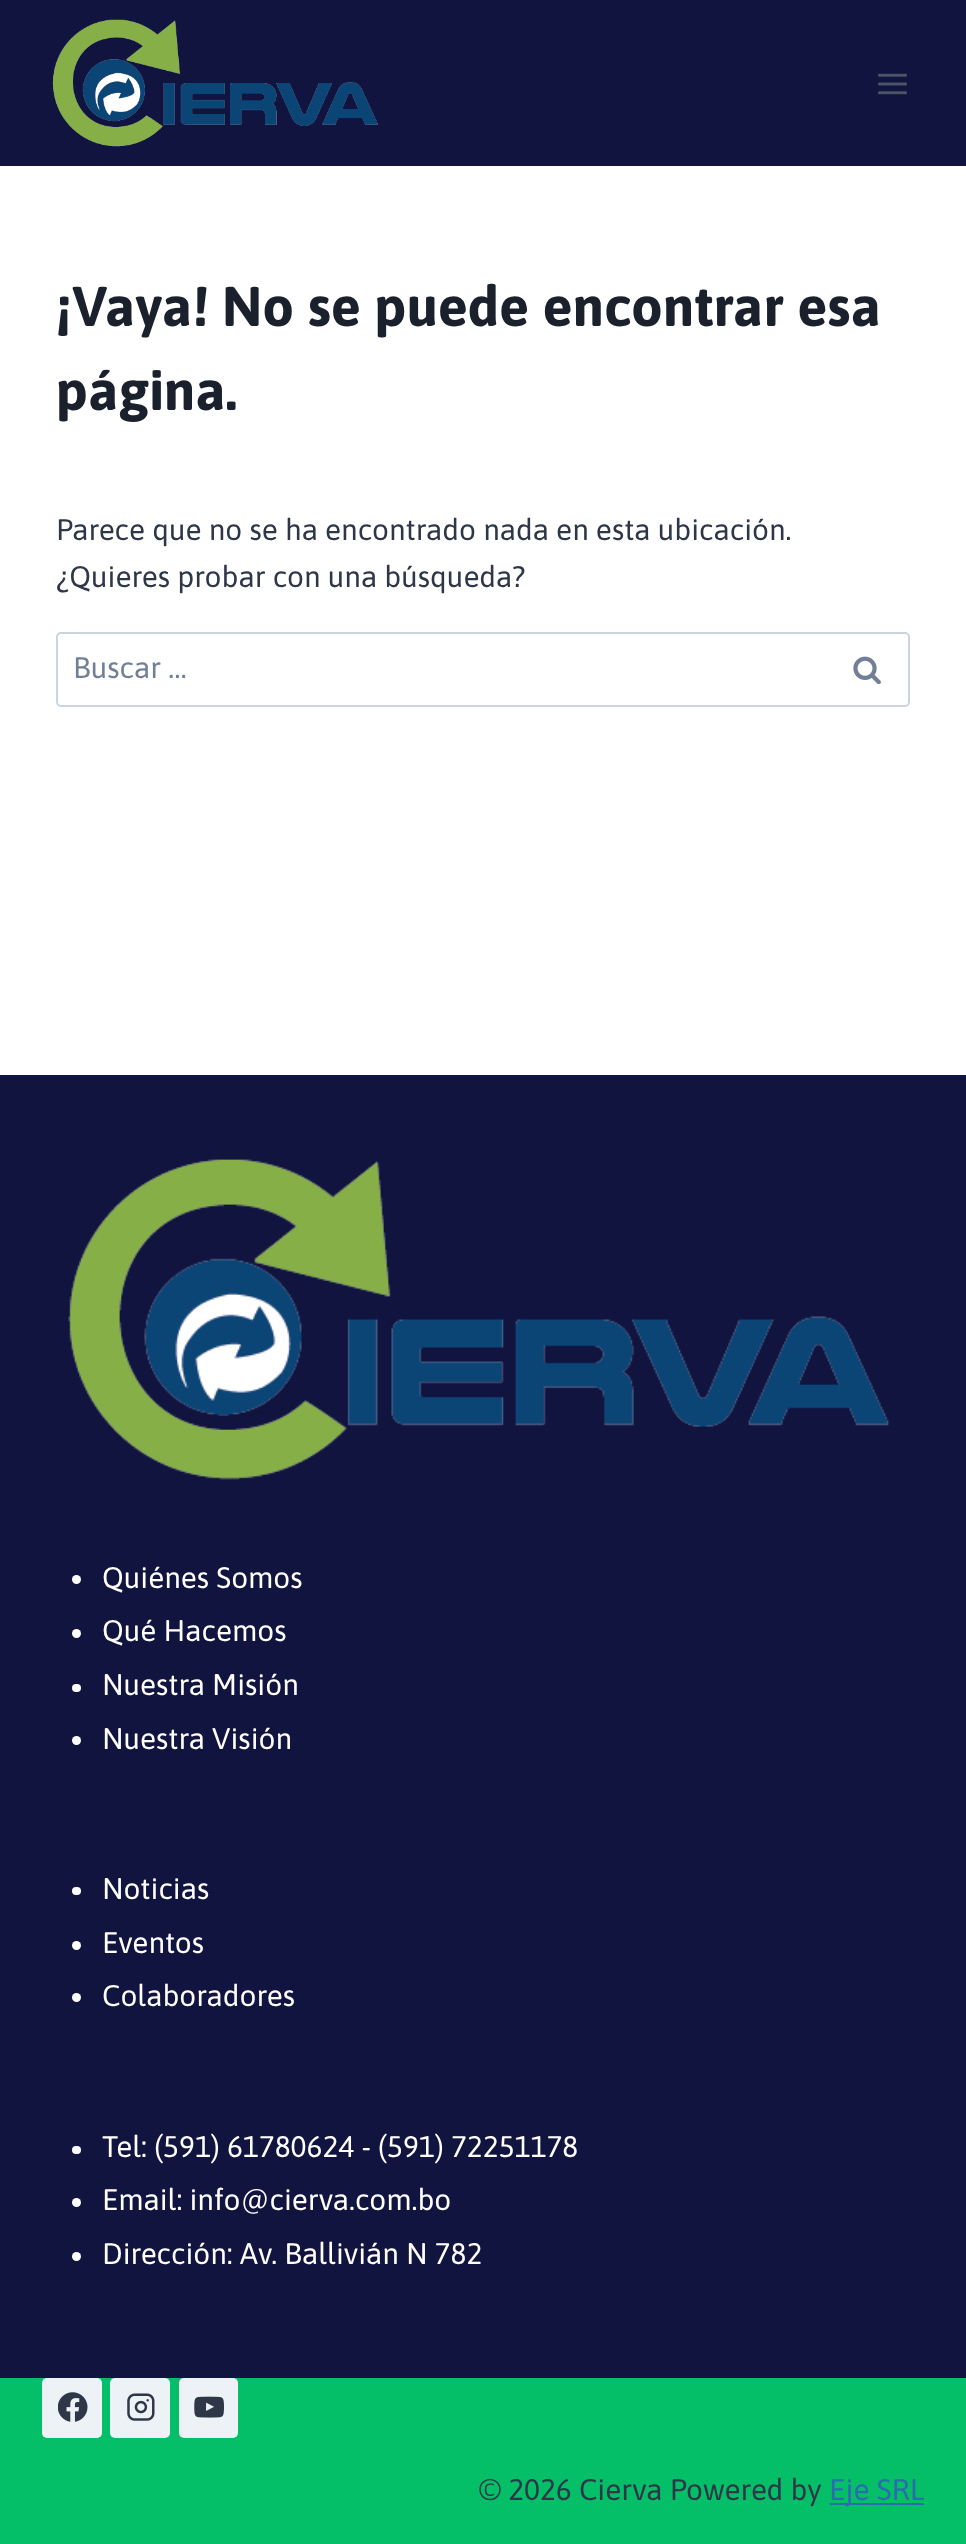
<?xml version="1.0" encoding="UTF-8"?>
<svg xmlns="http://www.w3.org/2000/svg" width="966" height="2544">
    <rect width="100%" height="100%" fill="#FFFFFF"/>
    <rect x="0" y="0" width="966" height="166" fill="#121440"/>
    <image x="52" y="19" width="326" height="128" href="img_01.png"/>
    <image x="878" y="73" width="29" height="22" href="img_02.png"/>
    <text font-family="Asap" font-size="56" font-weight="700" fill="#1A202C">
        <tspan x="56" y="326">¡Vaya! No se puede encontrar esa</tspan>
        <tspan x="56" y="410">página.</tspan>
    </text>
    <text font-family="Asap" font-size="29.75" fill="#2D3748">
        <tspan x="56" y="540">Parece que no se ha encontrado nada en esta ubicación.</tspan>
        <tspan x="56" y="587">¿Quieres probar con una búsqueda?</tspan>
    </text>
    <rect x="57" y="633" width="852" height="73" rx="4" fill="none" stroke="#CBD5E0" stroke-width="2"/>
    <text x="73" y="678" font-family="Asap" font-size="29.75" fill="#718096">Buscar …</text>
    <image x="853" y="656" width="28" height="28" href="img_03.png"/>
    <rect x="0" y="1075" width="966" height="1303" fill="#121440"/>
    <image x="68" y="1159" width="821" height="321" href="img_04.png"/>
    <circle cx="76.5" cy="1579.5" r="4.5" fill="#FFFFFF"/>
    <text x="102" y="1588" font-family="Asap" font-size="29.75" fill="#FFFFFF">Quiénes Somos</text>
    <circle cx="76.5" cy="1633.5" r="4.5" fill="#FFFFFF"/>
    <text x="102" y="1641" font-family="Asap" font-size="29.75" fill="#FFFFFF">Qué Hacemos</text>
    <rect x="72" y="1684" width="9" height="8" rx="4" fill="#FFFFFF"/>
    <text x="102" y="1695" font-family="Asap" font-size="29.75" fill="#FFFFFF">Nuestra Misión</text>
    <circle cx="76.5" cy="1740.5" r="4.5" fill="#FFFFFF"/>
    <text x="102" y="1749" font-family="Asap" font-size="29.75" fill="#FFFFFF">Nuestra Visión</text>
    <rect x="72" y="1887" width="9" height="8" rx="4" fill="#FFFFFF"/>
    <text x="102" y="1899" font-family="Asap" font-size="29.75" fill="#FFFFFF">Noticias</text>
    <circle cx="76.5" cy="1945.5" r="4.5" fill="#FFFFFF"/>
    <text x="102" y="1953" font-family="Asap" font-size="29.75" fill="#FFFFFF">Eventos</text>
    <circle cx="76.5" cy="1997.5" r="4.5" fill="#FFFFFF"/>
    <text x="102" y="2006" font-family="Asap" font-size="29.75" fill="#FFFFFF">Colaboradores</text>
    <rect x="72" y="2146" width="9" height="8" rx="4" fill="#FFFFFF"/>
    <text x="102" y="2157" font-family="Asap" font-size="29.75" fill="#FFFFFF">Tel: (591) 61780624 - (591) 72251178</text>
    <circle cx="76.5" cy="2202.5" r="4.5" fill="#FFFFFF"/>
    <text x="102" y="2210" font-family="Asap" font-size="29.75" fill="#FFFFFF">Email: info@cierva.com.bo</text>
    <circle cx="76.5" cy="2256.5" r="4.5" fill="#FFFFFF"/>
    <text x="102" y="2264" font-family="Asap" font-size="29.75" fill="#FFFFFF">Dirección: Av. Ballivián N 782</text>
    <rect x="0" y="2378" width="966" height="166" fill="#04BF68"/>
    <rect x="42" y="2378" width="60" height="60" rx="5" fill="#EDF2F7"/>
    <image x="58" y="2392" width="30" height="30" href="img_05.png"/>
    <rect x="110" y="2378" width="60" height="60" rx="5" fill="#EDF2F7"/>
    <image x="127" y="2393" width="28" height="28" href="img_06.png"/>
    <rect x="179" y="2378" width="59" height="60" rx="5" fill="#EDF2F7"/>
    <image x="194" y="2396" width="30" height="22" href="img_07.png"/>
    <text x="479" y="2500" font-family="Asap" font-size="29.75" fill="#2D3748">© 2026 Cierva Powered by</text>
    <rect x="830" y="2503" width="94" height="2" fill="#2B6CB0"/>
    <text x="829" y="2500" font-family="Asap" font-size="29.75" fill="#2B6CB0">Eje SRL</text>
</svg>
